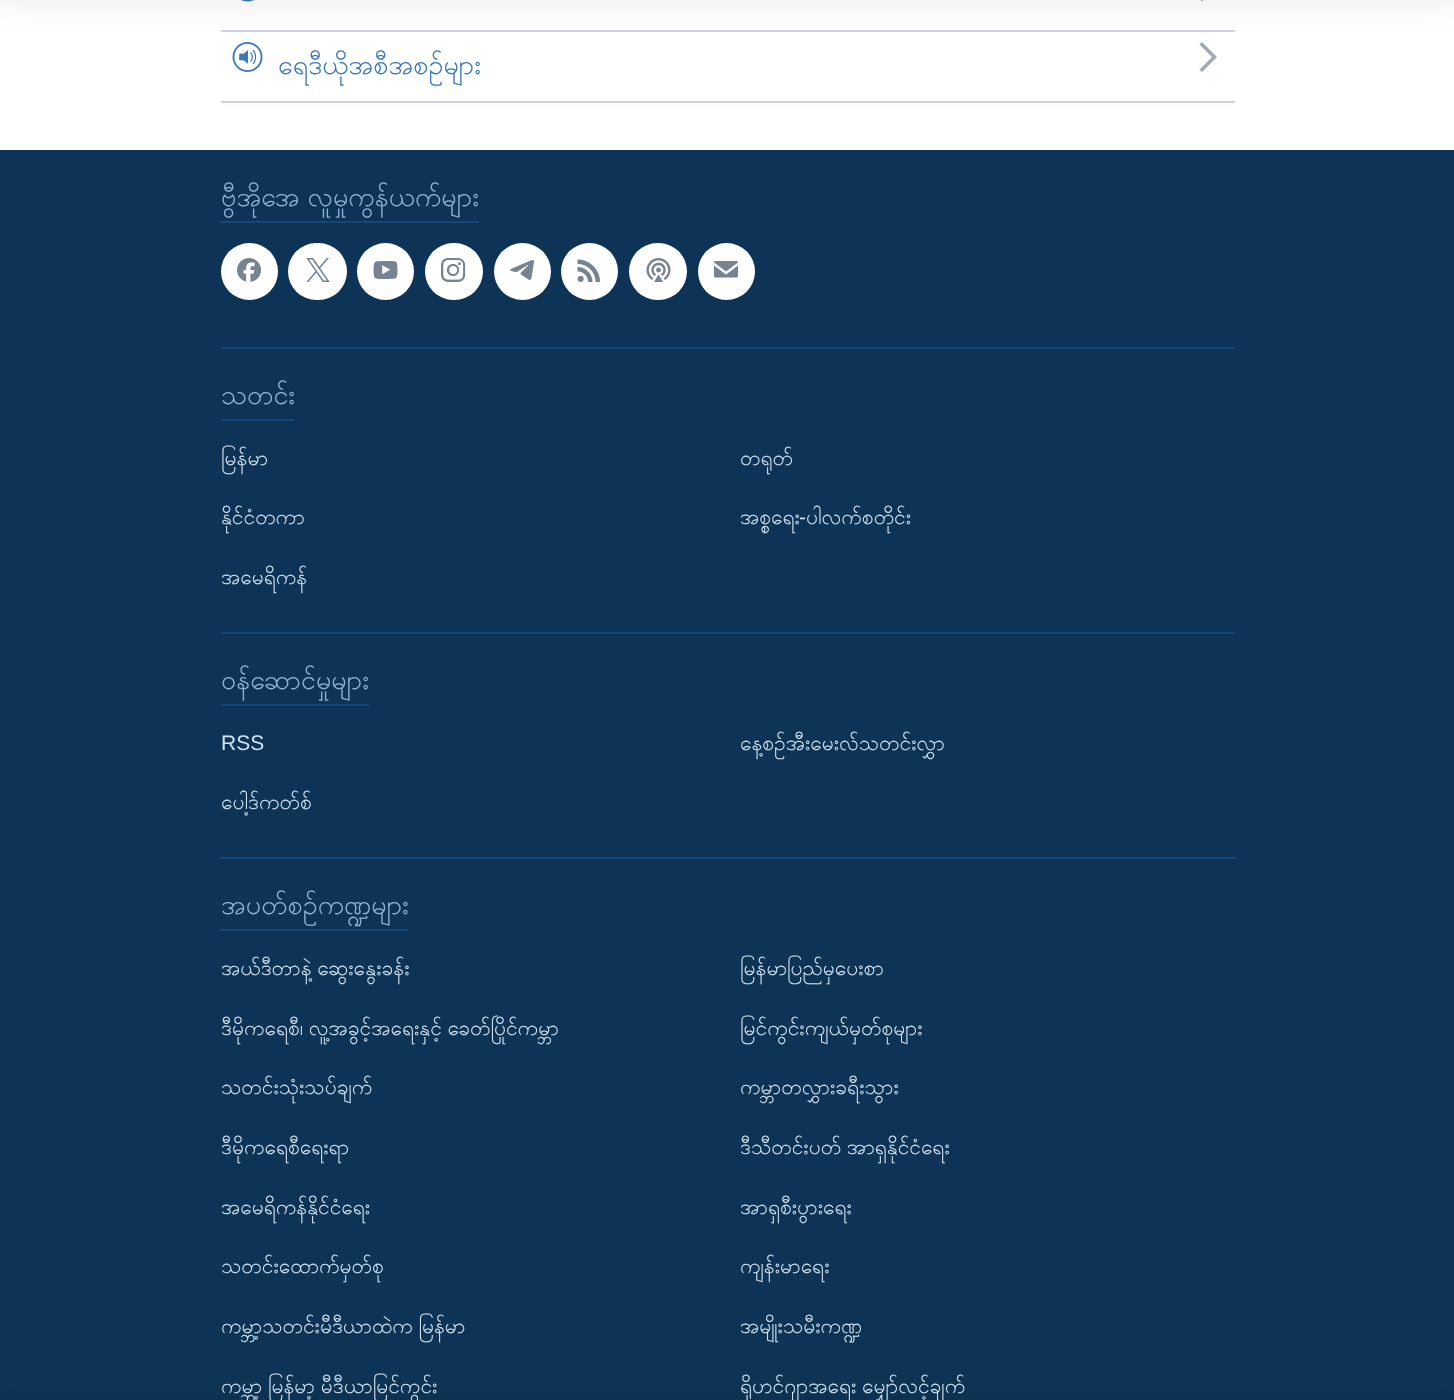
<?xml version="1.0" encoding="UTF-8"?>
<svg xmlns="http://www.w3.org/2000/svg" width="1454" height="1400">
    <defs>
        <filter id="blur1" x="-50%" y="-200%" width="200%" height="500%"><feGaussianBlur stdDeviation="15"/></filter>
    </defs>
    <rect width="100%" height="100%" fill="#FFFFFF"/>
    <rect x="221" y="30" width="1014" height="2" fill="#CBD1D6"/>
    <image x="241" y="0" width="13" height="2" href="img_01.png"/>
    <path d="M 1202 1.5 L 1217 -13.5 L 1202 -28.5 L 1199.5 -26 L 1212 -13.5 L 1199.5 -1 Z" fill="#A1AAB4"/>
    <image x="232" y="42" width="31" height="30" href="img_02.png"/>
    <path d="M 1202 72 L 1217 57 L 1202 42 L 1199.5 44.5 L 1212 57 L 1199.5 69.5 Z" fill="#A1AAB4"/>
    <rect x="0" y="-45" width="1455" height="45" fill="#000000" fill-opacity="0.1" filter="url(#blur1)"/>
    <rect x="0" y="150" width="1454" height="1250" fill="#0D3456"/>
    <rect x="0" y="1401" width="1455" height="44" fill="#000000" fill-opacity="0.1" filter="url(#blur1)"/>
    <rect x="221" y="101" width="1014" height="2" fill="#CBD1D6"/>
    <text x="278" y="74" font-family="Padauk" font-size="27" fill="#3A79B7">ရေဒီယိုအစီအစဉ်များ</text>
    <rect x="221" y="221" width="258" height="2" fill="#134976"/>
    <text x="221" y="206" word-spacing="-2" font-family="Padauk" font-size="27" fill="#8DB3D4">ဗွီအိုအေ လူမှုကွန်ယက်များ</text>
    <circle cx="249.5" cy="271.5" r="28.5" fill="#FFFFFF"/>
    <image x="237" y="258" width="24" height="24" href="img_03.png"/>
    <rect x="288" y="243" width="59" height="57" rx="28.5" fill="#FFFFFF"/>
    <image x="306" y="258" width="24" height="24" href="img_04.png"/>
    <circle cx="385.5" cy="271.5" r="28.5" fill="#FFFFFF"/>
    <image x="373" y="261" width="25" height="18" href="img_05.png"/>
    <rect x="425" y="243" width="58" height="57" rx="28.5" fill="#FFFFFF"/>
    <image x="441" y="258" width="25" height="24" href="img_06.png"/>
    <circle cx="522.5" cy="271.5" r="28.5" fill="#FFFFFF"/>
    <image x="510" y="260" width="24" height="20" href="img_07.png"/>
    <circle cx="589.5" cy="271.5" r="28.5" fill="#FFFFFF"/>
    <image x="577" y="259" width="23" height="23" href="img_08.png"/>
    <rect x="629" y="243" width="58" height="57" rx="28.5" fill="#FFFFFF"/>
    <image x="646" y="258" width="25" height="24" href="img_09.png"/>
    <circle cx="726.5" cy="271.5" r="28.5" fill="#FFFFFF"/>
    <image x="714" y="261" width="24" height="17" href="img_10.png"/>
    <rect x="221" y="347" width="1014" height="2" fill="#134976"/>
    <rect x="221" y="419" width="73" height="2" fill="#134976"/>
    <text x="221" y="404" font-family="Padauk" font-size="27" fill="#8DB3D4">သတင်း</text>
    <text x="221" y="465" font-family="Padauk" font-size="21" fill="#D1E1EE">မြန်မာ</text>
    <text x="740" y="465" font-family="Padauk" font-size="21" fill="#D1E1EE">တရုတ်</text>
    <text x="221" y="524" font-family="Padauk" font-size="21" fill="#D1E1EE">နိုင်ငံတကာ</text>
    <text x="740" y="524" font-family="Padauk" font-size="21" fill="#D1E1EE">အစ္စရေး</text>
    <text x="799" y="524" font-family="Liberation Sans" font-size="21" fill="#D1E1EE">-</text>
    <text x="806" y="524" font-family="Padauk" font-size="21" fill="#D1E1EE">ပါလက်စတိုင်း</text>
    <text x="221" y="584" font-family="Padauk" font-size="21" fill="#D1E1EE">အမေရိကန်</text>
    <rect x="221" y="632" width="1014" height="2" fill="#134976"/>
    <rect x="221" y="704" width="148" height="2" fill="#134976"/>
    <text x="221" y="689" font-family="Padauk" font-size="27" fill="#8DB3D4">၀န်ဆောင်မှုများ</text>
    <text x="221" y="750" font-family="Liberation Sans" font-size="21" fill="#D1E1EE">RSS</text>
    <text x="740" y="750" font-family="Padauk" font-size="21" fill="#D1E1EE">နေ့စဉ်အီးမေးလ်သတင်းလွှာ</text>
    <text x="221" y="809" font-family="Padauk" font-size="21" fill="#D1E1EE">ပေါ့ဒ်ကတ်စ်</text>
    <rect x="221" y="857" width="1014" height="2" fill="#134976"/>
    <rect x="221" y="929" width="187" height="2" fill="#134976"/>
    <text x="221" y="914" font-family="Padauk" font-size="27" fill="#8DB3D4">အပတ်စဉ်ကဏ္ဍများ</text>
    <text x="221" y="975" word-spacing="-2" font-family="Padauk" font-size="21" fill="#D1E1EE">အယ်ဒီတာနဲ့ ဆွေးနွေးခန်း</text>
    <text x="740" y="975" font-family="Padauk" font-size="21" fill="#D1E1EE">မြန်မာပြည်မှပေးစာ</text>
    <text x="221" y="1035" word-spacing="-2" font-family="Padauk" font-size="21" fill="#D1E1EE">ဒီမိုကရေစီ၊ လူ့အခွင့်အရေးနှင့် ခေတ်ပြိုင်ကမ္ဘာ</text>
    <text x="740" y="1035" font-family="Padauk" font-size="21" fill="#D1E1EE">မြင်ကွင်းကျယ်မှတ်စုများ</text>
    <text x="221" y="1094" font-family="Padauk" font-size="21" fill="#D1E1EE">သတင်းသုံးသပ်ချက်</text>
    <text x="740" y="1094" font-family="Padauk" font-size="21" fill="#D1E1EE">ကမ္ဘာတလွှားခရီးသွား</text>
    <text x="221" y="1154" font-family="Padauk" font-size="21" fill="#D1E1EE">ဒီမိုကရေစီရေးရာ</text>
    <text x="740" y="1154" word-spacing="-2" font-family="Padauk" font-size="21" fill="#D1E1EE">ဒီသီတင်းပတ် အာရှနိုင်ငံရေး</text>
    <text x="221" y="1214" font-family="Padauk" font-size="21" fill="#D1E1EE">အမေရိကန်နိုင်ငံရေး</text>
    <text x="740" y="1214" font-family="Padauk" font-size="21" fill="#D1E1EE">အာရှစီးပွားရေး</text>
    <text x="221" y="1273" font-family="Padauk" font-size="21" fill="#D1E1EE">သတင်းထောက်မှတ်စု</text>
    <text x="740" y="1273" font-family="Padauk" font-size="21" fill="#D1E1EE">ကျန်းမာရေး</text>
    <text x="221" y="1333" word-spacing="-2" font-family="Padauk" font-size="21" fill="#D1E1EE">ကမ္ဘာ့သတင်းမီဒီယာထဲက မြန်မာ</text>
    <text x="740" y="1333" font-family="Padauk" font-size="21" fill="#D1E1EE">အမျိုးသမီးကဏ္ဍ</text>
    <text x="221" y="1393" word-spacing="-2" font-family="Padauk" font-size="21" fill="#D1E1EE">ကမ္ဘာ့ မြန်မာ့ မီဒီယာမြင်ကွင်း</text>
    <text x="740" y="1393" word-spacing="-2" font-family="Padauk" font-size="21" fill="#D1E1EE">ရိုဟင်ဂျာအရေး မျှော်လင့်ချက်</text>
</svg>
